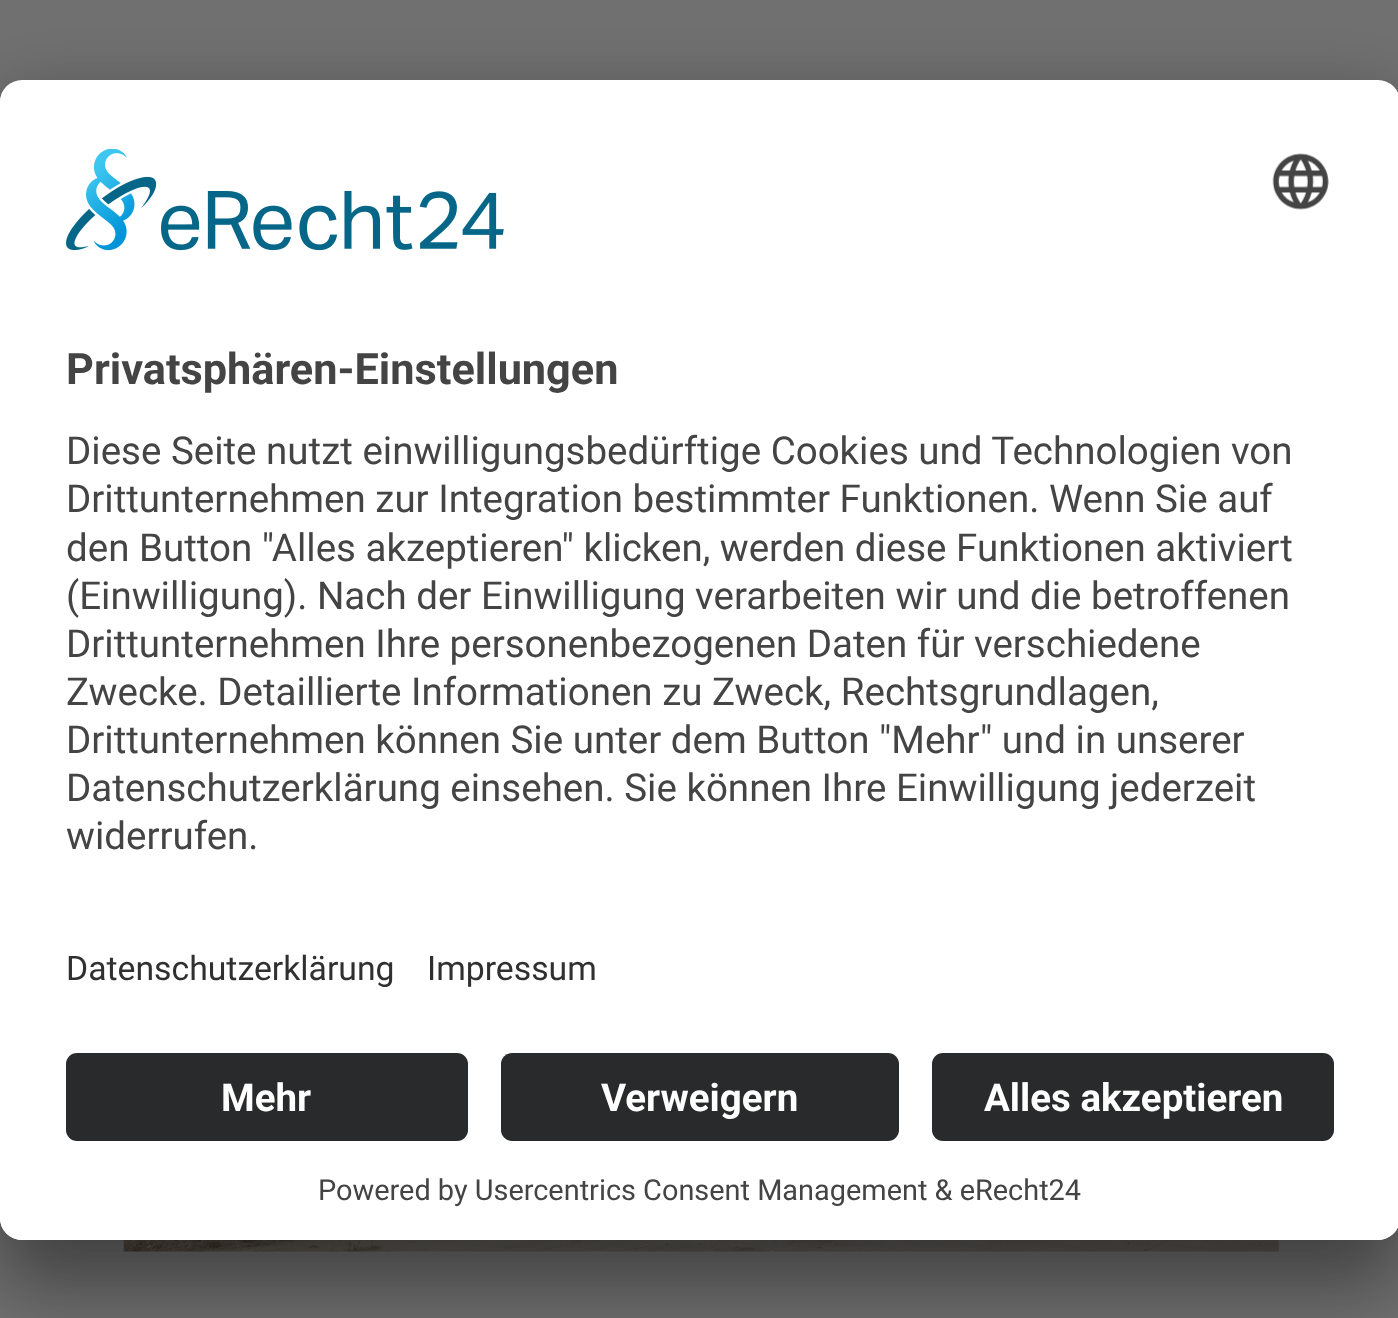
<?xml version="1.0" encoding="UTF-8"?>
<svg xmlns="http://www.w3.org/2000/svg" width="1398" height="1318">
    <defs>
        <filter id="blur1" x="-50%" y="-200%" width="200%" height="500%"><feGaussianBlur stdDeviation="38.5"/></filter>
        <filter id="blur2" x="-50%" y="-200%" width="200%" height="500%"><feGaussianBlur stdDeviation="36"/></filter>
        <clipPath id="clip1"><rect x="0" y="80" width="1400" height="1160" rx="22"/></clipPath>
        <clipPath id="clip2"><path d="M 22 80 H 1378 C 1390 80 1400 90 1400 102 V 1031 H 0 V 102 C 0 90 10 80 22 80 Z"/></clipPath>
    </defs>
    <rect width="100%" height="100%" fill="#707070"/>
    <image x="123" y="1240" width="1156" height="12" href="img_03.png"/>
    <rect x="0" y="135" width="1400" height="1160" rx="22" fill="#000000" fill-opacity="0.3" filter="url(#blur1)"/>
    <rect x="0" y="94" width="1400" height="1160" rx="22" fill="#000000" fill-opacity="0.22" filter="url(#blur2)"/>
    <rect x="0" y="80" width="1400" height="1160" rx="22" fill="#FFFFFF"/>
    <g clip-path="url(#clip1)">
        <g clip-path="url(#clip2)">
            <rect x="0" y="83" width="1398" height="948" fill="#FFFFFF"/>
        </g>
    </g>
    <image x="66" y="149" width="438" height="102" href="img_01.png"/>
    <image x="1272" y="153" width="57" height="57" href="img_02.png"/>
    <text x="66" y="384" font-family="Roboto" font-size="43.25" font-weight="700" fill="#444444">Privatsphären-Einstellungen</text>
    <text font-family="Roboto" font-size="38.5" fill="#444444">
        <tspan x="66" y="464">Diese Seite nutzt einwilligungsbedürftige Cookies und Technologien von</tspan>
        <tspan x="66" y="512">Drittunternehmen zur Integration bestimmter Funktionen. Wenn Sie auf</tspan>
        <tspan x="66" y="561">den Button "Alles akzeptieren" klicken, werden diese Funktionen aktiviert</tspan>
        <tspan x="66" y="609">(Einwilligung). Nach der Einwilligung verarbeiten wir und die betroffenen</tspan>
        <tspan x="66" y="657">Drittunternehmen Ihre personenbezogenen Daten für verschiedene</tspan>
        <tspan x="66" y="705">Zwecke. Detaillierte Informationen zu Zweck, Rechtsgrundlagen,</tspan>
        <tspan x="66" y="753">Drittunternehmen können Sie unter dem Button "Mehr" und in unserer</tspan>
        <tspan x="66" y="801">Datenschutzerklärung einsehen. Sie können Ihre Einwilligung jederzeit</tspan>
        <tspan x="66" y="849">widerrufen.</tspan>
    </text>
    <text x="66" y="980" font-family="Roboto" font-size="33.75" fill="#303030">Datenschutzerklärung</text>
    <text x="427" y="980" font-family="Roboto" font-size="33.75" fill="#303030">Impressum</text>
    <path d="M 0 1031 H 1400 V 1218 C 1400 1230 1390 1240 1378 1240 H 22 C 10 1240 0 1230 0 1218 Z" fill="#FFFFFF"/>
    <rect x="66" y="1053" width="402" height="88" rx="11" fill="#292A2B"/>
    <text x="221" y="1111" font-family="Roboto" font-size="38.5" font-weight="700" fill="#FFFFFF">Mehr</text>
    <rect x="501" y="1053" width="398" height="88" rx="11" fill="#292A2B"/>
    <text x="601" y="1111" font-family="Roboto" font-size="38.5" font-weight="700" fill="#FFFFFF">Verweigern</text>
    <rect x="932" y="1053" width="402" height="88" rx="11" fill="#292A2B"/>
    <text x="984" y="1111" font-family="Roboto" font-size="38.5" font-weight="700" fill="#FFFFFF">Alles akzeptieren</text>
    <text x="318" y="1200" font-family="Roboto" font-size="28.9" fill="#444444">Powered by Usercentrics Consent Management &amp; eRecht24</text>
</svg>
